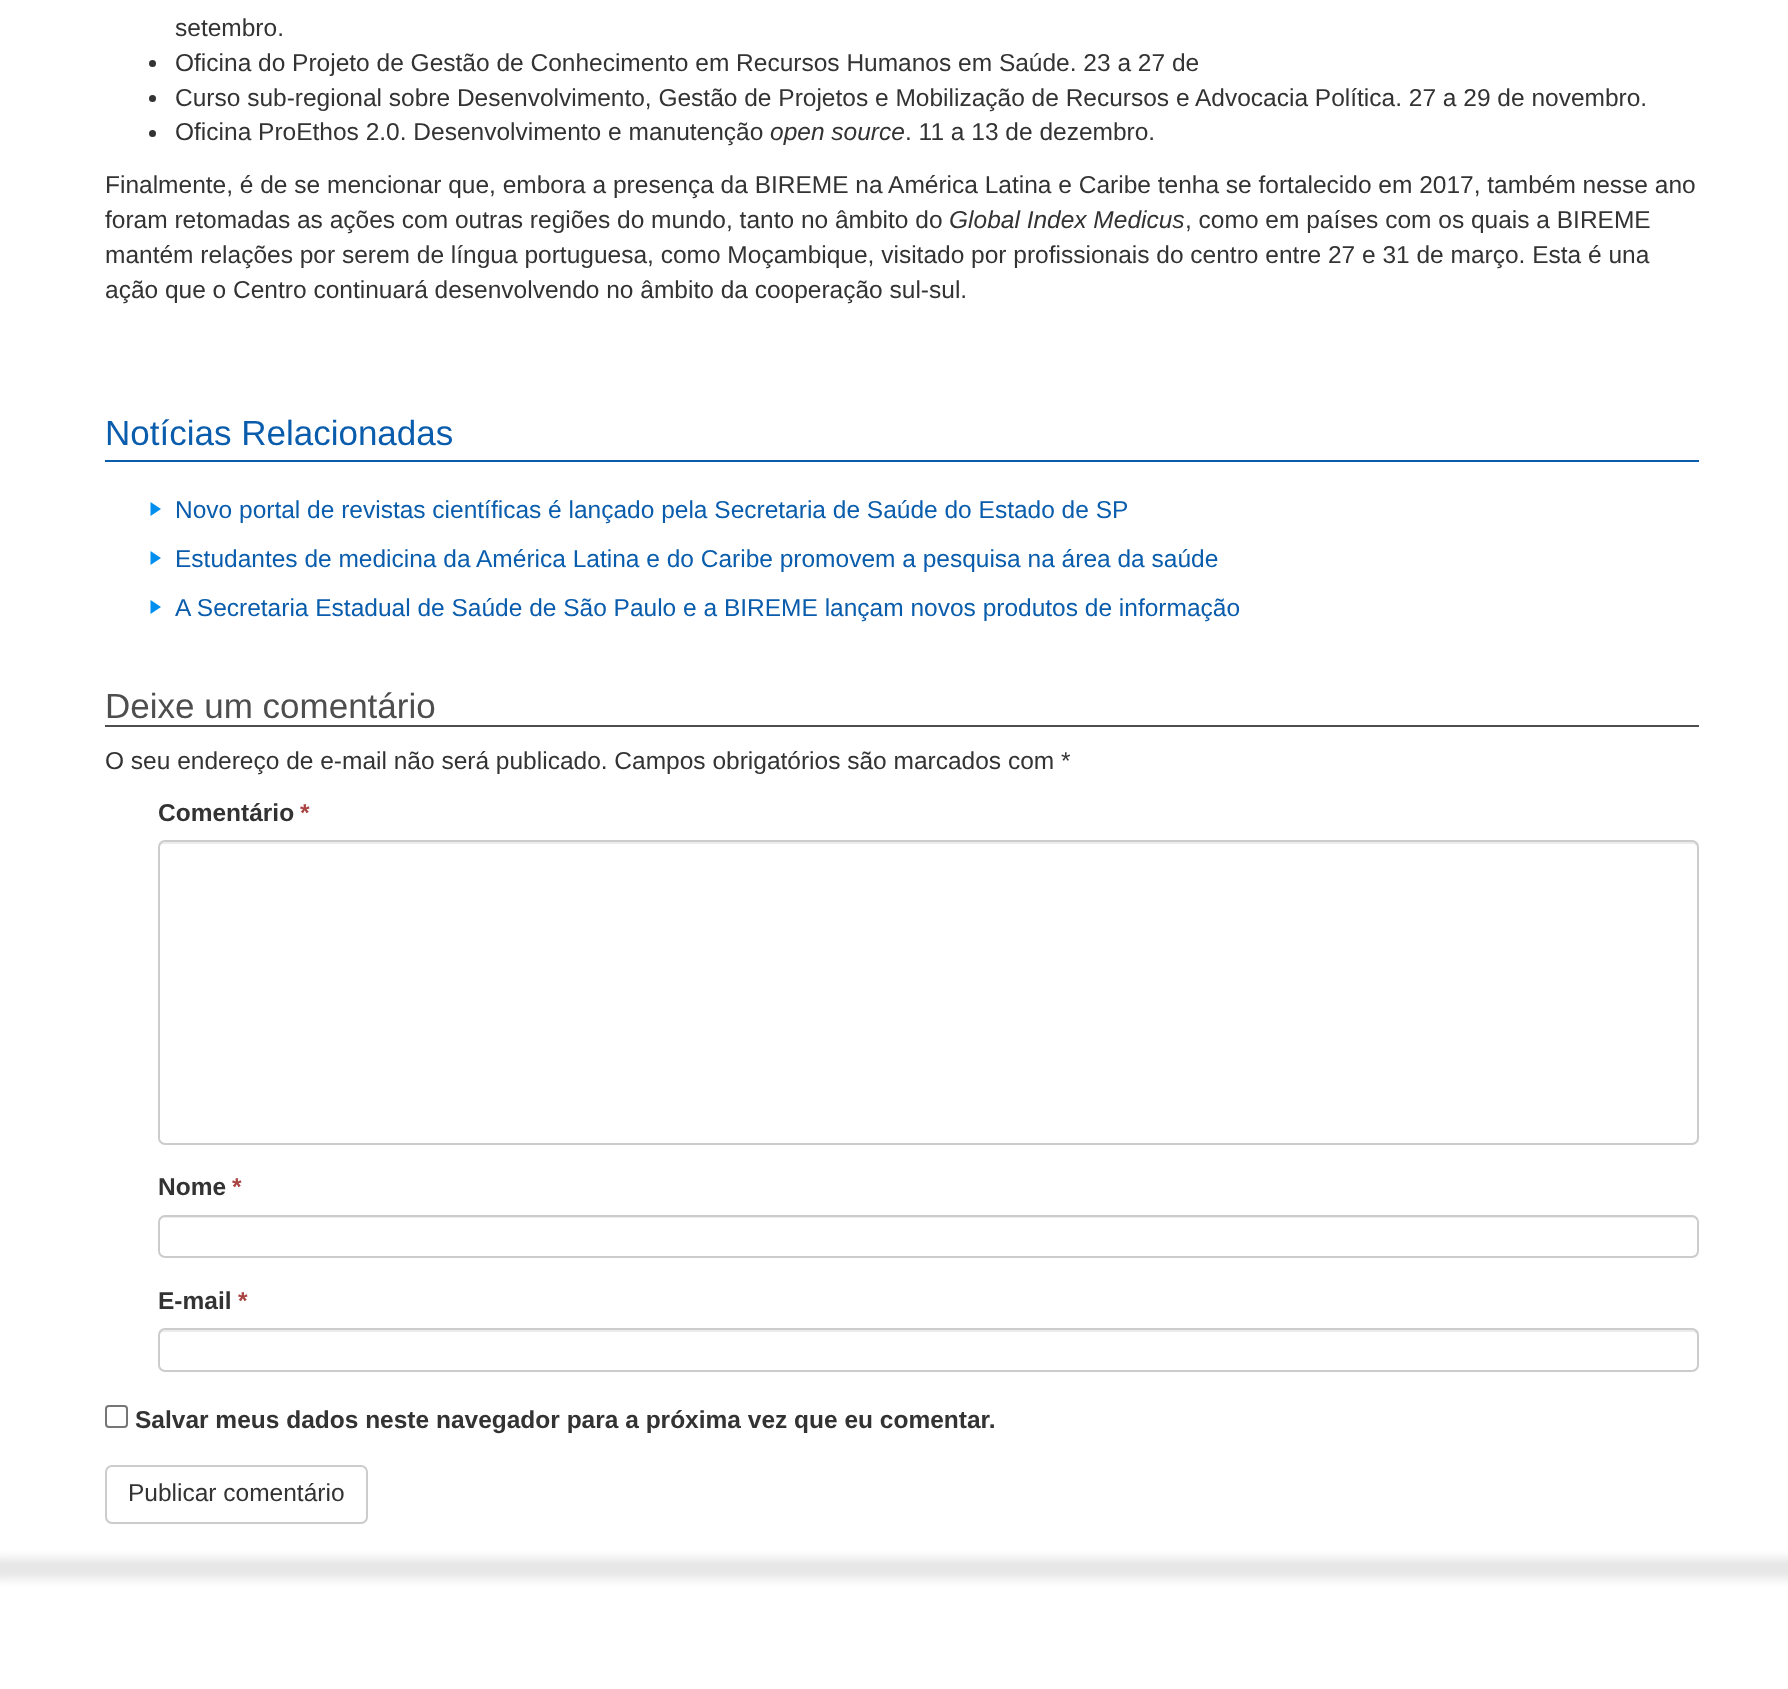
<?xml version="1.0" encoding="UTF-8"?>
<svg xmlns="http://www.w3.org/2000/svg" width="1788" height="1689">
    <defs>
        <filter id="blur1" x="-50%" y="-200%" width="200%" height="500%"><feGaussianBlur stdDeviation="5"/></filter>
    </defs>
    <rect width="100%" height="100%" fill="#FFFFFF"/>
    <text x="175" y="36" font-family="Liberation Sans" font-size="24.5" fill="#333333">setembro.</text>
    <circle cx="152.5" cy="63.5" r="3.5" fill="#333333"/>
    <text x="175" y="71" font-family="Liberation Sans" font-size="24.5" fill="#333333">Oficina do Projeto de Gestão de Conhecimento em Recursos Humanos em Saúde. 23 a 27 de</text>
    <circle cx="152.5" cy="98.5" r="3.5" fill="#333333"/>
    <text x="175" y="106" font-family="Liberation Sans" font-size="24.5" fill="#333333">Curso sub-regional sobre Desenvolvimento, Gestão de Projetos e Mobilização de Recursos e Advocacia Política. 27 a 29 de novembro.</text>
    <circle cx="152.5" cy="133.5" r="3.5" fill="#333333"/>
    <text x="175" y="140" font-family="Liberation Sans" font-size="24.5" fill="#333333">Oficina ProEthos 2.0. Desenvolvimento e manutenção</text>
    <text x="770" y="140" font-family="Liberation Sans" font-size="24.5" font-style="italic" fill="#333333">open source</text>
    <text x="905" y="140" font-family="Liberation Sans" font-size="24.5" fill="#333333">. 11 a 13 de dezembro.</text>
    <text font-family="Liberation Sans" font-size="24.5" fill="#333333">
        <tspan x="105" y="193">Finalmente, é de se mencionar que, embora a presença da BIREME na América Latina e Caribe tenha se fortalecido em 2017, também nesse ano</tspan>
        <tspan x="105" y="228">foram retomadas as ações com outras regiões do mundo, tanto no âmbito do</tspan>
    </text>
    <text x="949" y="228" font-family="Liberation Sans" font-size="24.5" font-style="italic" fill="#333333">Global Index Medicus</text>
    <text x="1185" y="228" font-family="Liberation Sans" font-size="24.5" fill="#333333">, como em países com os quais a BIREME</text>
    <text font-family="Liberation Sans" font-size="24.5" fill="#333333">
        <tspan x="105" y="263">mantém relações por serem de língua portuguesa, como Moçambique, visitado por profissionais do centro entre 27 e 31 de março. Esta é una</tspan>
        <tspan x="105" y="298">ação que o Centro continuará desenvolvendo no âmbito da cooperação sul-sul.</tspan>
    </text>
    <rect x="105" y="460" width="1594" height="2" fill="#0A5DAC"/>
    <text x="105" y="445" font-family="Liberation Sans" font-size="35" fill="#0A5DAC">Notícias Relacionadas</text>
    <path d="M 150.5 516 V 502 L 161 509 Z M 150.5 565 V 551 L 161 558 Z" fill="#008EEF"/>
    <text x="175" y="518" font-family="Liberation Sans" font-size="24.5" fill="#0A5DAC">Novo portal de revistas científicas é lançado pela Secretaria de Saúde do Estado de SP</text>
    <text x="175" y="567" font-family="Liberation Sans" font-size="24.5" fill="#0A5DAC">Estudantes de medicina da América Latina e do Caribe promovem a pesquisa na área da saúde</text>
    <path d="M 150.5 614 V 600 L 161 607 Z" fill="#008EEF"/>
    <text x="175" y="616" font-family="Liberation Sans" font-size="24.5" fill="#0A5DAC">A Secretaria Estadual de Saúde de São Paulo e a BIREME lançam novos produtos de informação</text>
    <rect x="105" y="725" width="1594" height="2" fill="#4E4E4E"/>
    <text x="105" y="718" font-family="Liberation Sans" font-size="35" fill="#4E4E4E">Deixe um comentário</text>
    <text x="105" y="769" font-family="Liberation Sans" font-size="24.5" fill="#333333">O seu endereço de e-mail não será publicado. Campos obrigatórios são marcados com *</text>
    <text x="158" y="821" font-family="Liberation Sans" font-size="24.5" font-weight="700" fill="#333333">Comentário</text>
    <text x="300" y="821" font-family="Liberation Sans" font-size="24.5" font-weight="700" fill="#A94442">*</text>
    <path d="M 164 844 H 1692 C 1695 844 1698 846 1698 849 C 1698 846 1697 842 1693 842 H 164 C 160 842 159 846 159 849 C 159 846 162 844 164 844 Z" fill="#ECECEC"/>
    <rect x="159" y="841" width="1539" height="303" rx="6" fill="none" stroke="#CCCCCC" stroke-width="2"/>
    <text x="158" y="1195" font-family="Liberation Sans" font-size="24.5" font-weight="700" fill="#333333">Nome</text>
    <text x="232" y="1195" font-family="Liberation Sans" font-size="24.5" font-weight="700" fill="#A94442">*</text>
    <path d="M 164 1218 H 1692 C 1695 1218 1698 1220 1698 1223 C 1698 1220 1697 1216 1693 1216 H 164 C 160 1216 159 1220 159 1223 C 159 1220 162 1218 164 1218 Z" fill="#ECECEC"/>
    <rect x="159" y="1216" width="1539" height="41" rx="6" fill="none" stroke="#CCCCCC" stroke-width="2"/>
    <text x="158" y="1309" font-family="Liberation Sans" font-size="24.5" font-weight="700" fill="#333333">E-mail</text>
    <text x="238" y="1309" font-family="Liberation Sans" font-size="24.5" font-weight="700" fill="#A94442">*</text>
    <path d="M 164 1332 H 1692 C 1695 1332 1698 1334 1698 1337 C 1698 1334 1697 1330 1693 1330 H 164 C 160 1330 159 1334 159 1337 C 159 1334 162 1332 164 1332 Z" fill="#ECECEC"/>
    <rect x="159" y="1329" width="1539" height="42" rx="6" fill="none" stroke="#CCCCCC" stroke-width="2"/>
    <rect x="106" y="1406" width="21" height="21" rx="3" fill="none" stroke="#767676" stroke-width="2"/>
    <text x="135" y="1428" font-family="Liberation Sans" font-size="24.5" font-weight="700" fill="#333333">Salvar meus dados neste navegador para a próxima vez que eu comentar.</text>
    <rect x="106" y="1466" width="261" height="57" rx="6" fill="none" stroke="#CCCCCC" stroke-width="2"/>
    <text x="128" y="1501" font-family="Liberation Sans" font-size="24.5" fill="#333333">Publicar comentário</text>
    <rect x="-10" y="1558" width="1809" height="21" fill="#E6E6E6" filter="url(#blur1)"/>
</svg>
